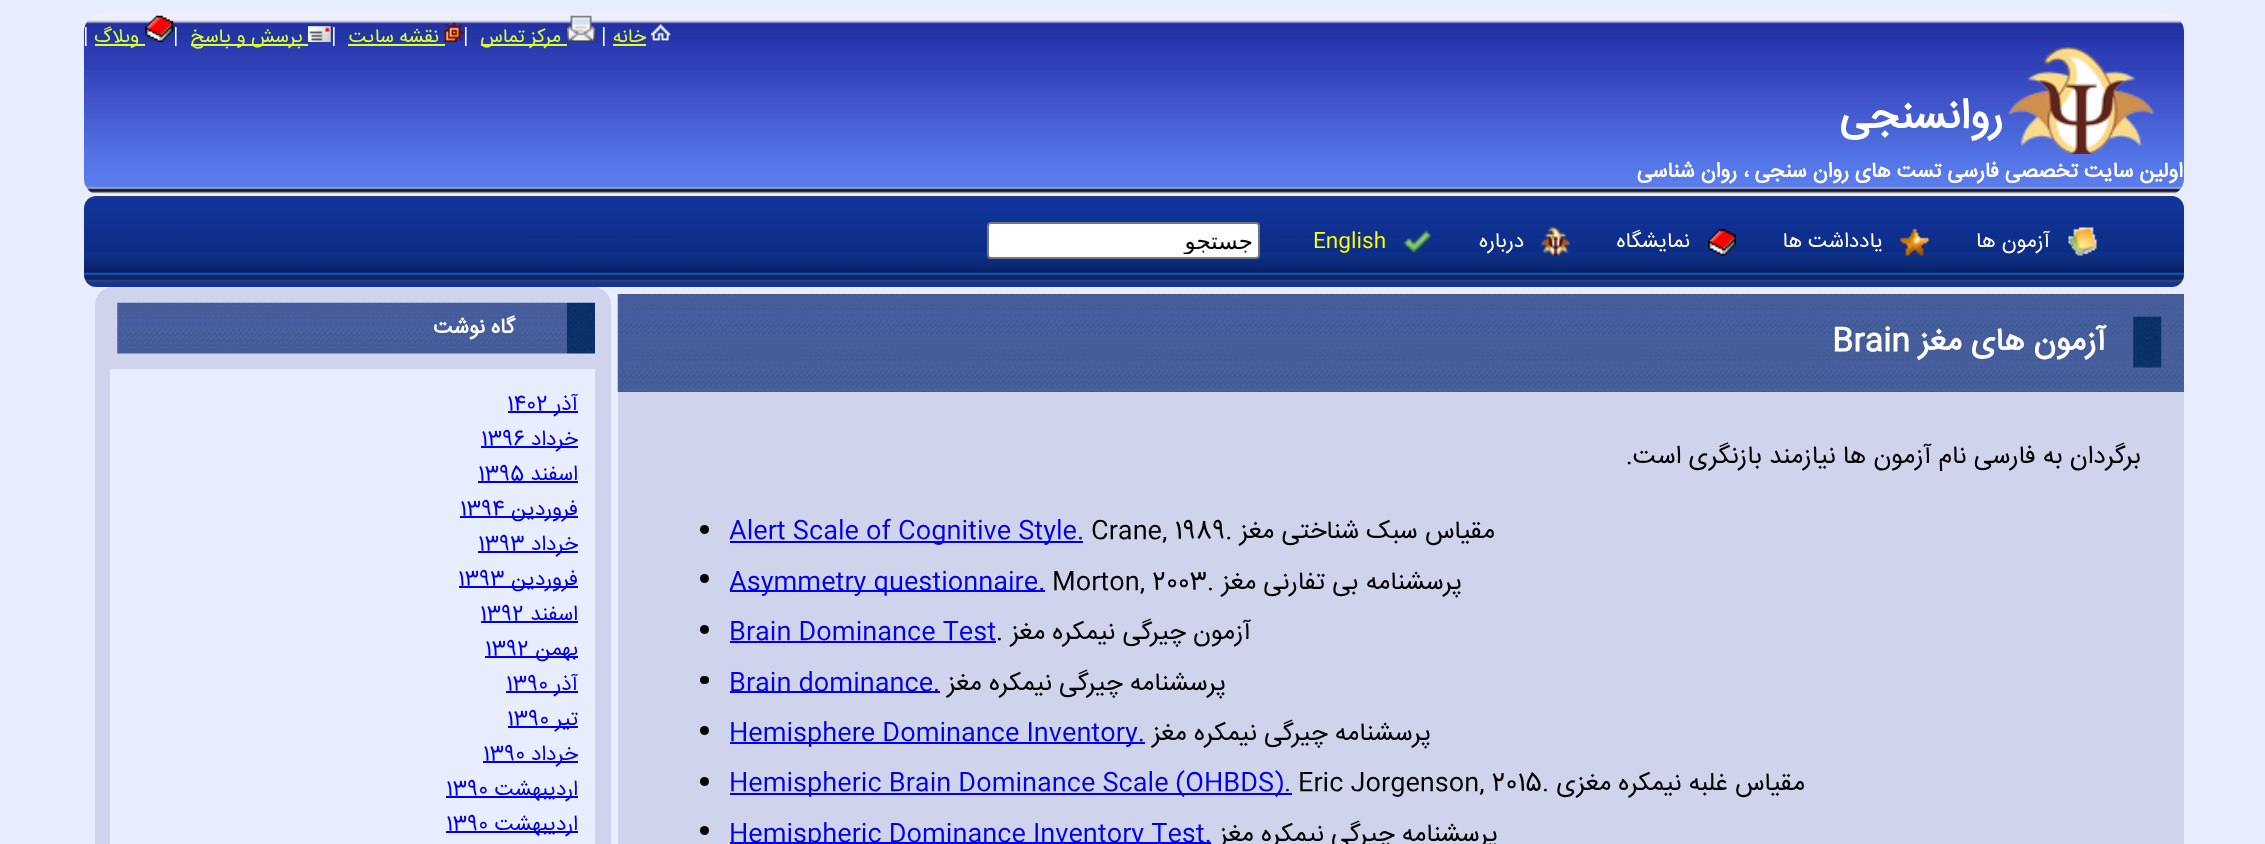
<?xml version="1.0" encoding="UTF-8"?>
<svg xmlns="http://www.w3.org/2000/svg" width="2265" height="844">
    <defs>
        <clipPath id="clip1"><rect x="994" y="228" width="259" height="26"/></clipPath>
    </defs>
    <rect width="100%" height="100%" fill="#E8EDFF"/>
    <image x="84" y="14" width="2100" height="182" href="img_01.png"/>
    <image x="651" y="24" width="20" height="17" href="img_02.png"/>
    <text x="646" y="42" font-family="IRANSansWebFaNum" font-size="19.25" direction="rtl" fill="#DBFF32">خانه</text>
    <rect x="613" y="44" width="33" height="2" fill="#DBFF32"/>
    <text x="601" y="42" font-family="IRANSansWebFaNum" font-size="21" fill="#FFFFFF">|</text>
    <image x="567" y="15" width="28" height="27" href="img_03.png"/>
    <rect x="481" y="44" width="86" height="2" fill="#DBFF32"/>
    <text x="561" y="42" font-family="IRANSansWebFaNum" font-size="19.25" direction="rtl" fill="#DBFF32">مرکز تماس</text>
    <text x="463" y="42" font-family="IRANSansWebFaNum" font-size="21" fill="#FFFFFF">|</text>
    <image x="444" y="22" width="20" height="20" href="img_04.png"/>
    <rect x="348" y="44" width="97" height="2" fill="#DBFF32"/>
    <text x="439" y="42" font-family="IRANSansWebFaNum" font-size="19.25" direction="rtl" fill="#DBFF32">نقشه سایت</text>
    <text x="331" y="42" font-family="IRANSansWebFaNum" font-size="21" fill="#FFFFFF">|</text>
    <image x="308" y="26" width="23" height="16" href="img_05.png"/>
    <rect x="191" y="44" width="117" height="2" fill="#DBFF32"/>
    <text x="303" y="42" font-family="IRANSansWebFaNum" font-size="19.25" direction="rtl" fill="#DBFF32">پرسش و پاسخ</text>
    <text x="173" y="42" font-family="IRANSansWebFaNum" font-size="21" fill="#FFFFFF">|</text>
    <image x="145" y="15" width="29" height="27" href="img_06.png"/>
    <rect x="95" y="44" width="50" height="2" fill="#DBFF32"/>
    <text x="139" y="42" font-family="IRANSansWebFaNum" font-size="19.25" direction="rtl" fill="#DBFF32">وبلاگ</text>
    <text x="83" y="42" font-family="IRANSansWebFaNum" font-size="21" fill="#FFFFFF">|</text>
    <image x="2009" y="46" width="146" height="108" href="img_07.png"/>
    <text x="2003" y="128" font-family="IRANSansWebFaNum" font-size="42" font-weight="700" direction="rtl" fill="#FFFFFF">روانسنجی</text>
    <text x="2183" y="177" font-family="IRANSansWebFaNum" font-size="21" font-weight="700" direction="rtl" fill="#FFFFFF">اولین سایت تخصصی</text>
    <text x="1999" y="177" font-family="IRANSansWebFaNum" font-size="21" font-weight="700" direction="rtl" fill="#FFFFFF">فارسی تست های روان سنجی ، روان شناسی</text>
    <image x="84" y="196" width="2100" height="91" href="img_08.png"/>
    <image x="2068" y="227" width="29" height="29" href="img_09.png"/>
    <text x="2050" y="247" font-family="IRANSansWebFaNum" font-size="21" direction="rtl" fill="#FFFFFF">آزمون ها</text>
    <image x="1900" y="229" width="29" height="27" href="img_10.png"/>
    <text x="1883" y="247" font-family="IRANSansWebFaNum" font-size="21" direction="rtl" fill="#FFFFFF">یادداشت ها</text>
    <image x="1708" y="229" width="28" height="27" href="img_11.png"/>
    <text x="1690" y="247" font-family="IRANSansWebFaNum" font-size="21" direction="rtl" fill="#FFFFFF">نمایشگاه</text>
    <image x="1541" y="227" width="29" height="29" href="img_12.png"/>
    <text x="1524" y="247" font-family="IRANSansWebFaNum" font-size="21" direction="rtl" fill="#FFFFFF">درباره</text>
    <image x="1403" y="230" width="29" height="23" href="img_13.png"/>
    <text x="1313" y="247" font-family="IRANSansWebFaNum" font-size="21" fill="#FFFF00">English</text>
    <rect x="988" y="223" width="271" height="35" rx="3" fill="#FFFFFF" stroke="#767676" stroke-width="2"/>
    <g clip-path="url(#clip1)">
        <text x="1253" y="249" font-family="DejaVu Sans" font-size="23" direction="rtl" fill="#000000">جستجو</text>
    </g>
    <rect x="618" y="392" width="1566" height="452" fill="#CFD3EC"/>
    <image x="617" y="294" width="1567" height="98" href="img_14.png"/>
    <image x="2133" y="316" width="29" height="52" href="img_15.png"/>
    <text x="2106" y="350" font-family="IRANSansWebFaNum" font-size="31.5" font-weight="700" direction="rtl" fill="#FFFFFF">آزمون های مغز</text>
    <text x="1832" y="350" font-family="IRANSansWebFaNum" font-size="31.5" font-weight="700" fill="#FFFFFF">Brain</text>
    <text x="2141" y="463" font-family="IRANSansWebFaNum" font-size="25.2" direction="rtl" fill="#000000">برگردان به فارسی نام آزمون ها نیازمند بازنگری است.</text>
    <text x="1495" y="538" font-family="IRANSansWebFaNum" font-size="25.2" direction="rtl" fill="#000000">مقیاس سبک شناختی مغز</text>
    <text x="1091" y="538" font-family="IRANSansWebFaNum" font-size="25.2" fill="#000000">Crane‚ 1989.</text>
    <rect x="730" y="541" width="353" height="2" fill="#0000EE"/>
    <text x="729" y="538" font-family="IRANSansWebFaNum" font-size="25.2" fill="#0000EE">Alert Scale of Cognitive Style.</text>
    <circle cx="704.5" cy="529.5" r="4.5" fill="#000000"/>
    <text x="1462" y="589" font-family="IRANSansWebFaNum" font-size="25.2" direction="rtl" fill="#000000">پرسشنامه بی تفارنی مغز</text>
    <text x="1052" y="589" font-family="IRANSansWebFaNum" font-size="25.2" fill="#000000">Morton‚ 2003.</text>
    <rect x="730" y="590" width="315" height="2" fill="#0000EE"/>
    <text x="729" y="589" font-family="IRANSansWebFaNum" font-size="25.2" fill="#0000EE">Asymmetry questionnaire.</text>
    <circle cx="704.5" cy="578.5" r="4.5" fill="#000000"/>
    <text x="1251" y="639" font-family="IRANSansWebFaNum" font-size="25.2" direction="rtl" fill="#000000">آزمون چیرگی نیمکره مغز</text>
    <text x="729" y="639" font-family="IRANSansWebFaNum" font-size="25.2" fill="#0000EE">Brain Dominance Test</text>
    <circle cx="704.5" cy="629.5" r="4.5" fill="#000000"/>
    <text x="996" y="639" font-family="IRANSansWebFaNum" font-size="25.2" fill="#000000">.</text>
    <rect x="730" y="641" width="266" height="2" fill="#0000EE"/>
    <text x="1226" y="690" font-family="IRANSansWebFaNum" font-size="25.2" direction="rtl" fill="#000000">پرسشنامه چیرگی نیمکره مغز</text>
    <rect x="730" y="691" width="210" height="2" fill="#0000EE"/>
    <text x="729" y="690" font-family="IRANSansWebFaNum" font-size="25.2" fill="#0000EE">Brain dominance.</text>
    <rect x="700" y="676" width="9" height="8" rx="4" fill="#000000"/>
    <text x="1431" y="740" font-family="IRANSansWebFaNum" font-size="25.2" direction="rtl" fill="#000000">پرسشنامه چیرگی نیمکره مغز</text>
    <rect x="730" y="742" width="415" height="2" fill="#0000EE"/>
    <text x="729" y="740" font-family="IRANSansWebFaNum" font-size="25.2" fill="#0000EE">Hemisphere Dominance Inventory.</text>
    <circle cx="704.5" cy="730.5" r="4.5" fill="#000000"/>
    <text x="1805" y="790" font-family="IRANSansWebFaNum" font-size="25.2" direction="rtl" fill="#000000">مقیاس غلبه نیمکره مغزی</text>
    <text x="1298" y="790" font-family="IRANSansWebFaNum" font-size="25.2" fill="#000000">Eric Jorgenson‚ 2015.</text>
    <rect x="730" y="793" width="562" height="2" fill="#0000EE"/>
    <text x="729" y="790" font-family="IRANSansWebFaNum" font-size="25.2" fill="#0000EE">Hemispheric Brain Dominance Scale (OHBDS).</text>
    <circle cx="704.5" cy="781.5" r="4.5" fill="#000000"/>
    <text x="1498" y="841" font-family="IRANSansWebFaNum" font-size="25.2" direction="rtl" fill="#000000">پرسشنامه چیرگی نیمکره مغز</text>
    <rect x="730" y="842" width="481" height="2" fill="#0000EE"/>
    <text x="729" y="841" font-family="IRANSansWebFaNum" font-size="25.2" fill="#0000EE">Hemispheric Dominance Inventory Test.</text>
    <circle cx="704.5" cy="830.5" r="4.5" fill="#000000"/>
    <rect x="95" y="287" width="516" height="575" rx="18" fill="#CFD3EC"/>
    <image x="567" y="302" width="28" height="52" href="img_16.png"/>
    <image x="117" y="302" width="450" height="52" href="img_17.png"/>
    <text x="515" y="333" font-family="IRANSansWebFaNum" font-size="21" font-weight="700" direction="rtl" fill="#FFFFFF">گاه نوشت</text>
    <rect x="110" y="369" width="485" height="475" fill="#E8EDFF"/>
    <rect x="508" y="411" width="70" height="2" fill="#0000EE"/>
    <text x="578" y="410" font-family="IRANSansWebFaNum" font-size="21" direction="rtl" fill="#0000EE">آذر</text>
    <text x="507" y="410" font-family="IRANSansWebFaNum" font-size="21" fill="#0000EE">1402</text>
    <rect x="481" y="446" width="97" height="2" fill="#0000EE"/>
    <text x="578" y="445" font-family="IRANSansWebFaNum" font-size="21" direction="rtl" fill="#0000EE">خرداد</text>
    <text x="481" y="445" font-family="IRANSansWebFaNum" font-size="21" fill="#0000EE">1396</text>
    <text x="578" y="480" font-family="IRANSansWebFaNum" font-size="21" direction="rtl" fill="#0000EE">اسفند</text>
    <rect x="478" y="481" width="100" height="2" fill="#0000EE"/>
    <text x="478" y="480" font-family="IRANSansWebFaNum" font-size="21" fill="#0000EE">1395</text>
    <rect x="460" y="516" width="118" height="2" fill="#0000EE"/>
    <text x="578" y="515" font-family="IRANSansWebFaNum" font-size="21" direction="rtl" fill="#0000EE">فروردین</text>
    <text x="460" y="515" font-family="IRANSansWebFaNum" font-size="21" fill="#0000EE">1394</text>
    <rect x="478" y="551" width="100" height="2" fill="#0000EE"/>
    <text x="578" y="550" font-family="IRANSansWebFaNum" font-size="21" direction="rtl" fill="#0000EE">خرداد</text>
    <text x="478" y="550" font-family="IRANSansWebFaNum" font-size="21" fill="#0000EE">1393</text>
    <rect x="459" y="586" width="119" height="2" fill="#0000EE"/>
    <text x="578" y="585" font-family="IRANSansWebFaNum" font-size="21" direction="rtl" fill="#0000EE">فروردین</text>
    <text x="458" y="585" font-family="IRANSansWebFaNum" font-size="21" fill="#0000EE">1393</text>
    <text x="578" y="620" font-family="IRANSansWebFaNum" font-size="21" direction="rtl" fill="#0000EE">اسفند</text>
    <rect x="481" y="621" width="97" height="2" fill="#0000EE"/>
    <text x="480" y="620" font-family="IRANSansWebFaNum" font-size="21" fill="#0000EE">1392</text>
    <rect x="485" y="656" width="93" height="2" fill="#0000EE"/>
    <text x="578" y="655" font-family="IRANSansWebFaNum" font-size="21" direction="rtl" fill="#0000EE">بهمن</text>
    <text x="485" y="655" font-family="IRANSansWebFaNum" font-size="21" fill="#0000EE">1392</text>
    <rect x="506" y="691" width="72" height="2" fill="#0000EE"/>
    <text x="578" y="690" font-family="IRANSansWebFaNum" font-size="21" direction="rtl" fill="#0000EE">آذر</text>
    <text x="506" y="690" font-family="IRANSansWebFaNum" font-size="21" fill="#0000EE">1390</text>
    <rect x="508" y="726" width="70" height="2" fill="#0000EE"/>
    <text x="578" y="725" font-family="IRANSansWebFaNum" font-size="21" direction="rtl" fill="#0000EE">تیر</text>
    <text x="507" y="725" font-family="IRANSansWebFaNum" font-size="21" fill="#0000EE">1390</text>
    <rect x="483" y="761" width="95" height="2" fill="#0000EE"/>
    <text x="578" y="760" font-family="IRANSansWebFaNum" font-size="21" direction="rtl" fill="#0000EE">خرداد</text>
    <text x="483" y="760" font-family="IRANSansWebFaNum" font-size="21" fill="#0000EE">1390</text>
    <rect x="446" y="796" width="132" height="2" fill="#0000EE"/>
    <text x="578" y="795" font-family="IRANSansWebFaNum" font-size="21" direction="rtl" fill="#0000EE">اردیبهشت</text>
    <text x="446" y="795" font-family="IRANSansWebFaNum" font-size="21" fill="#0000EE">1390</text>
    <rect x="446" y="831" width="132" height="2" fill="#0000EE"/>
    <text x="578" y="830" font-family="IRANSansWebFaNum" font-size="21" direction="rtl" fill="#0000EE">اردیبهشت</text>
    <text x="446" y="830" font-family="IRANSansWebFaNum" font-size="21" fill="#0000EE">1390</text>
</svg>
